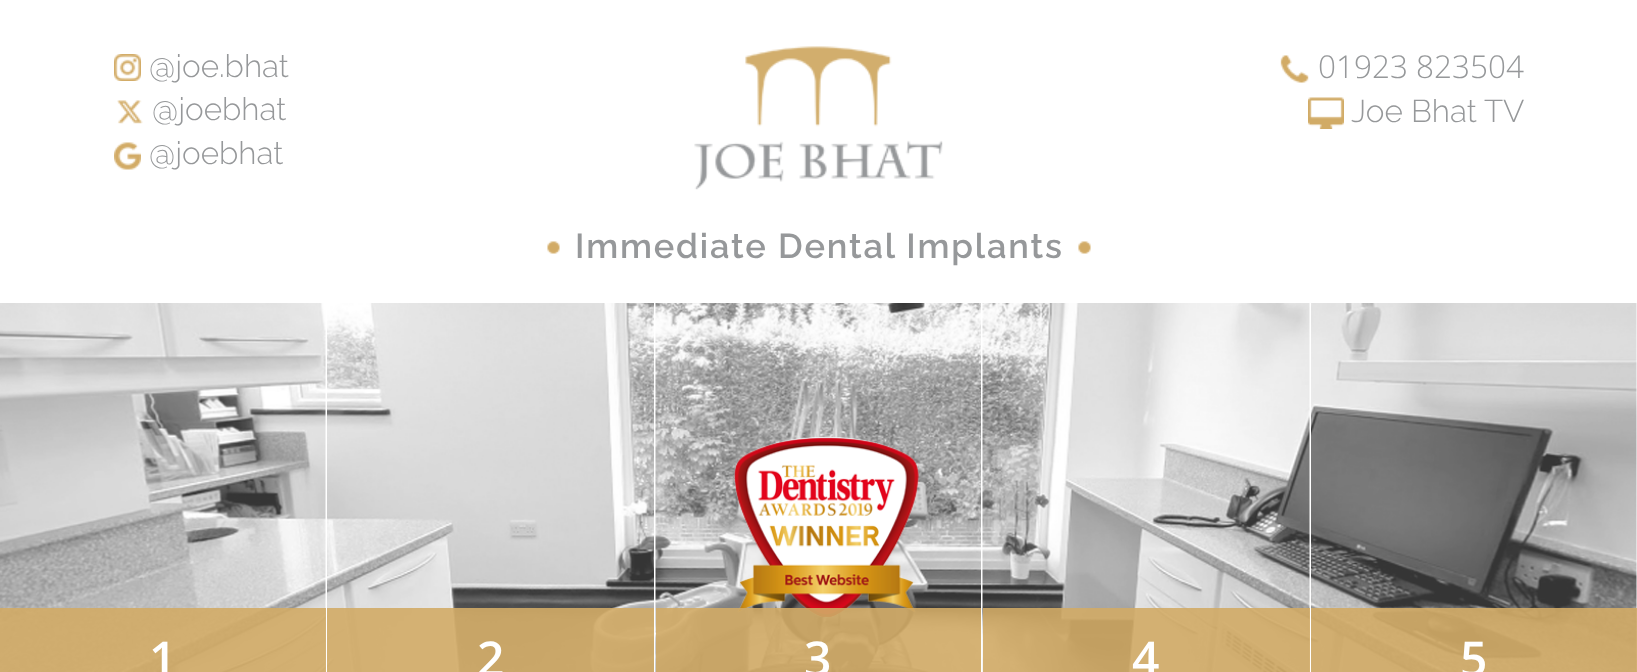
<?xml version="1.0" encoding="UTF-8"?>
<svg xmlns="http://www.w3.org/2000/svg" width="1637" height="672">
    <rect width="100%" height="100%" fill="#FFFFFF"/>
    <image x="114" y="54" width="27" height="27" href="img_01.png"/>
    <text x="149" y="77" font-family="Raleway" font-size="31.5" font-weight="300" fill="#96989A">@joe.bhat</text>
    <image x="117" y="100" width="26" height="24" href="img_02.png"/>
    <text x="152" y="120" font-family="Raleway" font-size="31.5" font-weight="300" fill="#96989A">@joebhat</text>
    <image x="114" y="142" width="27" height="28" href="img_03.png"/>
    <text x="149" y="164" font-family="Raleway" font-size="31.5" font-weight="300" fill="#96989A">@joebhat</text>
    <image x="694" y="46" width="249" height="144" href="img_04.png"/>
    <image x="1280" y="55" width="29" height="28" href="img_05.png"/>
    <text x="1318" y="78" font-family="Open Sans" font-size="31.5" font-weight="300" fill="#96989A">01923 823504</text>
    <image x="1308" y="97" width="36" height="32" href="img_06.png"/>
    <text x="1351" y="122" font-family="Raleway" font-size="31.5" font-weight="300" fill="#96989A">Joe Bhat TV</text>
    <image x="547" y="241" width="13" height="13" href="img_07.png"/>
    <text x="575" y="258" font-family="Raleway" font-size="34.5" font-weight="600" letter-spacing="1.8" fill="#96989A">Immediate Dental Implants</text>
    <image x="1078" y="241" width="13" height="13" href="img_07.png"/>
    <image x="0" y="303" width="326" height="369" href="img_08.png"/>
    <rect x="0" y="608" width="326" height="64" fill="#D2AB66" fill-opacity="0.9"/>
    <text x="149" y="676" font-family="Open Sans" font-size="48" font-weight="600" fill="#FFFFFF">1</text>
    <image x="327" y="303" width="327" height="369" href="img_09.png"/>
    <rect x="327" y="608" width="327" height="64" fill="#D2AB66" fill-opacity="0.9"/>
    <text x="477" y="676" font-family="Open Sans" font-size="48" font-weight="600" fill="#FFFFFF">2</text>
    <image x="655" y="303" width="326" height="369" href="img_10.png"/>
    <rect x="656" y="608" width="325" height="64" fill="#D2AB66" fill-opacity="0.9"/>
    <text x="804" y="676" font-family="Open Sans" font-size="48" font-weight="600" fill="#FFFFFF">3</text>
    <image x="982" y="303" width="328" height="369" href="img_11.png"/>
    <rect x="983" y="608" width="327" height="64" fill="#D2AB66" fill-opacity="0.9"/>
    <text x="1132" y="676" font-family="Open Sans" font-size="48" font-weight="600" fill="#FFFFFF">4</text>
    <image x="1311" y="303" width="326" height="369" href="img_12.png"/>
    <rect x="1311" y="608" width="326" height="64" fill="#D2AB66" fill-opacity="0.9"/>
    <text x="1460" y="676" font-family="Open Sans" font-size="48" font-weight="600" fill="#FFFFFF">5</text>
</svg>
